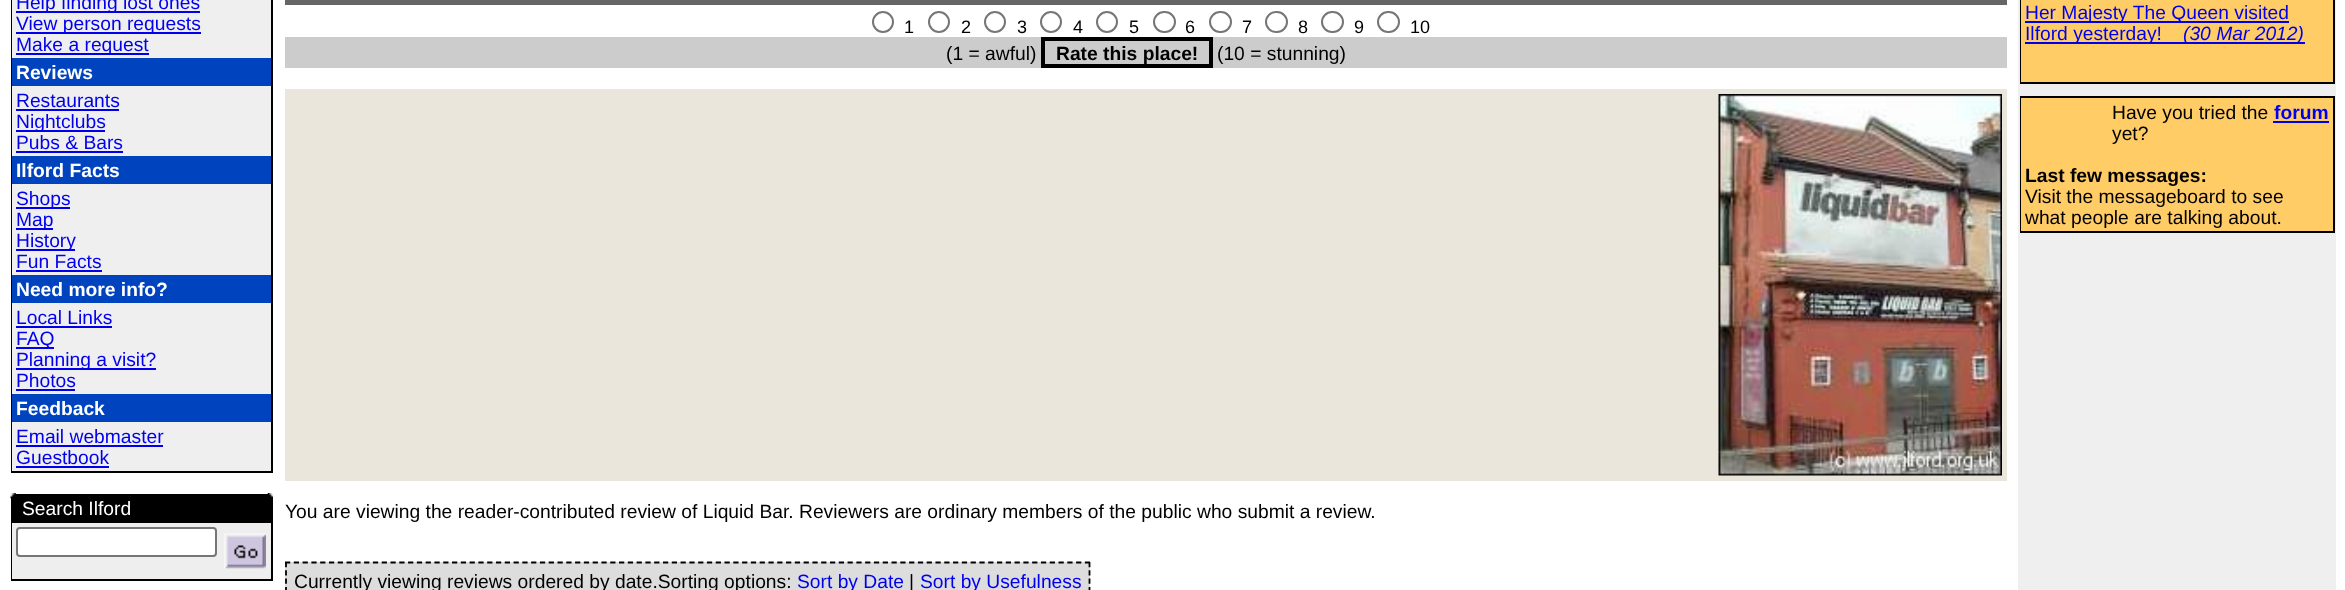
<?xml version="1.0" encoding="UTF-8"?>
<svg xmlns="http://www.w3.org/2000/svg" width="2345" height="590">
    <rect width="100%" height="100%" fill="#FFFFFF"/>
    <rect x="11" y="0" width="262" height="473" fill="#000000"/>
    <rect x="12" y="0" width="259" height="471" fill="#EFEFEF"/>
    <rect x="16" y="11" width="184" height="2" fill="#0000EE"/>
    <text x="16" y="9" font-family="Liberation Sans" font-size="19.25" fill="#0000EE">Help finding lost ones</text>
    <rect x="16" y="32" width="185" height="2" fill="#0000EE"/>
    <text x="16" y="30" font-family="Liberation Sans" font-size="19.25" fill="#0000EE">View person requests</text>
    <rect x="16" y="53" width="133" height="2" fill="#0000EE"/>
    <text x="16" y="51" font-family="Liberation Sans" font-size="19.25" fill="#0000EE">Make a request</text>
    <rect x="12" y="58" width="259" height="28" fill="#0043BF"/>
    <text x="16" y="79" font-family="Liberation Sans" font-size="19.25" font-weight="700" fill="#FFFFFF">Reviews</text>
    <text x="16" y="107" font-family="Liberation Sans" font-size="19.25" fill="#0000EE">Restaurants</text>
    <rect x="16" y="109" width="103" height="2" fill="#0000EE"/>
    <rect x="16" y="130" width="89" height="2" fill="#0000EE"/>
    <text font-family="Liberation Sans" font-size="19.25" fill="#0000EE">
        <tspan x="16" y="128">Nightclubs</tspan>
        <tspan x="16" y="149">Pubs &amp; Bars</tspan>
    </text>
    <rect x="16" y="151" width="107" height="2" fill="#0000EE"/>
    <rect x="12" y="156" width="259" height="28" fill="#0043BF"/>
    <text x="16" y="177" font-family="Liberation Sans" font-size="19.25" font-weight="700" fill="#FFFFFF">Ilford Facts</text>
    <rect x="16" y="207" width="54" height="2" fill="#0000EE"/>
    <text x="16" y="205" font-family="Liberation Sans" font-size="19.25" fill="#0000EE">Shops</text>
    <rect x="16" y="228" width="37" height="2" fill="#0000EE"/>
    <text x="16" y="226" font-family="Liberation Sans" font-size="19.25" fill="#0000EE">Map</text>
    <rect x="16" y="249" width="59" height="2" fill="#0000EE"/>
    <text font-family="Liberation Sans" font-size="19.25" fill="#0000EE">
        <tspan x="16" y="247">History</tspan>
        <tspan x="16" y="268">Fun Facts</tspan>
    </text>
    <rect x="16" y="270" width="86" height="2" fill="#0000EE"/>
    <rect x="12" y="275" width="259" height="28" fill="#0043BF"/>
    <text x="16" y="296" font-family="Liberation Sans" font-size="19.25" font-weight="700" fill="#FFFFFF">Need more info?</text>
    <text x="16" y="324" font-family="Liberation Sans" font-size="19.25" fill="#0000EE">Local Links</text>
    <rect x="16" y="326" width="96" height="2" fill="#0000EE"/>
    <rect x="16" y="347" width="38" height="2" fill="#0000EE"/>
    <text x="16" y="345" font-family="Liberation Sans" font-size="19.25" fill="#0000EE">FAQ</text>
    <rect x="16" y="368" width="140" height="2" fill="#0000EE"/>
    <text font-family="Liberation Sans" font-size="19.25" fill="#0000EE">
        <tspan x="16" y="366">Planning a visit?</tspan>
        <tspan x="16" y="387">Photos</tspan>
    </text>
    <rect x="16" y="389" width="59" height="2" fill="#0000EE"/>
    <rect x="12" y="394" width="259" height="28" fill="#0043BF"/>
    <text x="16" y="415" font-family="Liberation Sans" font-size="19.25" font-weight="700" fill="#FFFFFF">Feedback</text>
    <text x="16" y="443" font-family="Liberation Sans" font-size="19.25" fill="#0000EE">Email webmaster</text>
    <rect x="16" y="445" width="147" height="2" fill="#0000EE"/>
    <text x="16" y="464" font-family="Liberation Sans" font-size="19.25" fill="#0000EE">Guestbook</text>
    <rect x="16" y="466" width="93" height="2" fill="#0000EE"/>
    <rect x="11" y="494" width="262" height="87" fill="#000000"/>
    <image x="10" y="493" width="6" height="6" href="img_01.png"/>
    <image x="267" y="493" width="6" height="4" href="img_02.png"/>
    <text x="22" y="515" font-family="Liberation Sans" font-size="19.25" fill="#FFFFFF">Search Ilford</text>
    <rect x="12" y="523" width="259" height="56" fill="#EEEEEE"/>
    <rect x="17" y="528" width="199" height="28" rx="3" fill="#FFFFFF" stroke="#767676" stroke-width="2"/>
    <image x="224" y="533" width="42" height="36" href="img_03.png"/>
    <rect x="285" y="0" width="1722" height="5" fill="#666666"/>
    <circle cx="883" cy="22" r="10" fill="none" stroke="#767676" stroke-width="2"/>
    <text x="904" y="33" font-family="Liberation Sans" font-size="18" fill="#000000">1</text>
    <circle cx="939" cy="22" r="10" fill="none" stroke="#767676" stroke-width="2"/>
    <text x="961" y="33" font-family="Liberation Sans" font-size="18" fill="#000000">2</text>
    <circle cx="995" cy="22" r="10" fill="none" stroke="#767676" stroke-width="2"/>
    <text x="1017" y="33" font-family="Liberation Sans" font-size="18" fill="#000000">3</text>
    <circle cx="1051" cy="22" r="10" fill="none" stroke="#767676" stroke-width="2"/>
    <text x="1073" y="33" font-family="Liberation Sans" font-size="18" fill="#000000">4</text>
    <circle cx="1107" cy="22" r="10" fill="none" stroke="#767676" stroke-width="2"/>
    <text x="1129" y="33" font-family="Liberation Sans" font-size="18" fill="#000000">5</text>
    <rect x="1154" y="12" width="21" height="20" rx="10" fill="none" stroke="#767676" stroke-width="2"/>
    <text x="1185" y="33" font-family="Liberation Sans" font-size="18" fill="#000000">6</text>
    <rect x="1210" y="12" width="21" height="20" rx="10" fill="none" stroke="#767676" stroke-width="2"/>
    <text x="1242" y="33" font-family="Liberation Sans" font-size="18" fill="#000000">7</text>
    <rect x="1266" y="12" width="21" height="20" rx="10" fill="none" stroke="#767676" stroke-width="2"/>
    <text x="1298" y="33" font-family="Liberation Sans" font-size="18" fill="#000000">8</text>
    <rect x="1322" y="12" width="21" height="20" rx="10" fill="none" stroke="#767676" stroke-width="2"/>
    <text x="1354" y="33" font-family="Liberation Sans" font-size="18" fill="#000000">9</text>
    <rect x="1378" y="12" width="21" height="20" rx="10" fill="none" stroke="#767676" stroke-width="2"/>
    <text x="1410" y="33" font-family="Liberation Sans" font-size="18" fill="#000000">10</text>
    <rect x="285" y="37" width="1722" height="31" fill="#CCCCCC"/>
    <text x="946" y="60" font-family="Liberation Sans" font-size="19.25" fill="#000000">(1 = awful)</text>
    <rect x="1043" y="39" width="168" height="27" fill="none" stroke="#000000" stroke-width="4"/>
    <text x="1056" y="60" font-family="Liberation Sans" font-size="19.25" font-weight="700" fill="#000000">Rate this place!</text>
    <text x="1217" y="60" font-family="Liberation Sans" font-size="19.25" fill="#000000">(10 = stunning)</text>
    <rect x="285" y="89" width="1722" height="392" fill="#EBE6DC"/>
    <image x="1718" y="94" width="284" height="382" href="img_04.png"/>
    <text x="285" y="518" font-family="Liberation Sans" font-size="19.25" fill="#000000">You are viewing the reader-contributed review of Liquid Bar. Reviewers are ordinary members of the public who submit a review.</text>
    <rect x="285" y="562" width="805" height="28" fill="#DDDDDD"/>
    <path d="M 285 562.5 H 1090" fill="none" stroke="#000000" stroke-width="1.8" stroke-dasharray="5.25 3.54"/>
    <path d="M 1089.5 562 V 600" fill="none" stroke="#000000" stroke-width="1.8" stroke-dasharray="5.25 3.06"/>
    <path d="M 286 562 V 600" fill="none" stroke="#000000" stroke-width="1.8" stroke-dasharray="5.25 3.06"/>
    <text x="294" y="588" font-family="Liberation Sans" font-size="19.25" fill="#000000">Currently viewing reviews ordered by date.Sorting options:</text>
    <text x="797" y="588" font-family="Liberation Sans" font-size="19.25" fill="#0000EE">Sort by Date</text>
    <text x="909" y="588" font-family="Liberation Sans" font-size="19.25" fill="#000000">|</text>
    <text x="920" y="588" font-family="Liberation Sans" font-size="19.25" fill="#0000EE">Sort by Usefulness</text>
    <rect x="2018" y="0" width="318" height="590" fill="#EFEFEF"/>
    <rect x="2020" y="0" width="315" height="84" fill="#000000"/>
    <rect x="2021" y="0" width="312" height="82" fill="#FFCC66"/>
    <rect x="2025" y="21" width="264" height="2" fill="#0000EE"/>
    <text x="2025" y="19" font-family="Liberation Sans" font-size="19.25" fill="#0000EE">Her Majesty The Queen visited</text>
    <rect x="2025" y="42" width="280" height="2" fill="#0000EE"/>
    <text x="2025" y="40" font-family="Liberation Sans" font-size="19.25" fill="#0000EE">Ilford yesterday!</text>
    <text x="2183" y="40" font-family="Liberation Sans" font-size="19.25" font-style="italic" fill="#0000EE">(30 Mar 2012)</text>
    <rect x="2020" y="96" width="315" height="137" fill="#000000"/>
    <rect x="2021" y="98" width="312" height="133" fill="#FFCC66"/>
    <text x="2112" y="119" font-family="Liberation Sans" font-size="19.25" fill="#000000">Have you tried the</text>
    <text x="2274" y="119" font-family="Liberation Sans" font-size="19.25" font-weight="700" fill="#0000EE">forum</text>
    <rect x="2273" y="121" width="56" height="2" fill="#0000EE"/>
    <text x="2112" y="140" font-family="Liberation Sans" font-size="19.25" fill="#000000">yet?</text>
    <text x="2025" y="182" font-family="Liberation Sans" font-size="19.25" font-weight="700" fill="#000000">Last few messages:</text>
    <text font-family="Liberation Sans" font-size="19.25" fill="#000000">
        <tspan x="2025" y="203">Visit the messageboard to see</tspan>
        <tspan x="2025" y="224">what people are talking about.</tspan>
    </text>
</svg>
